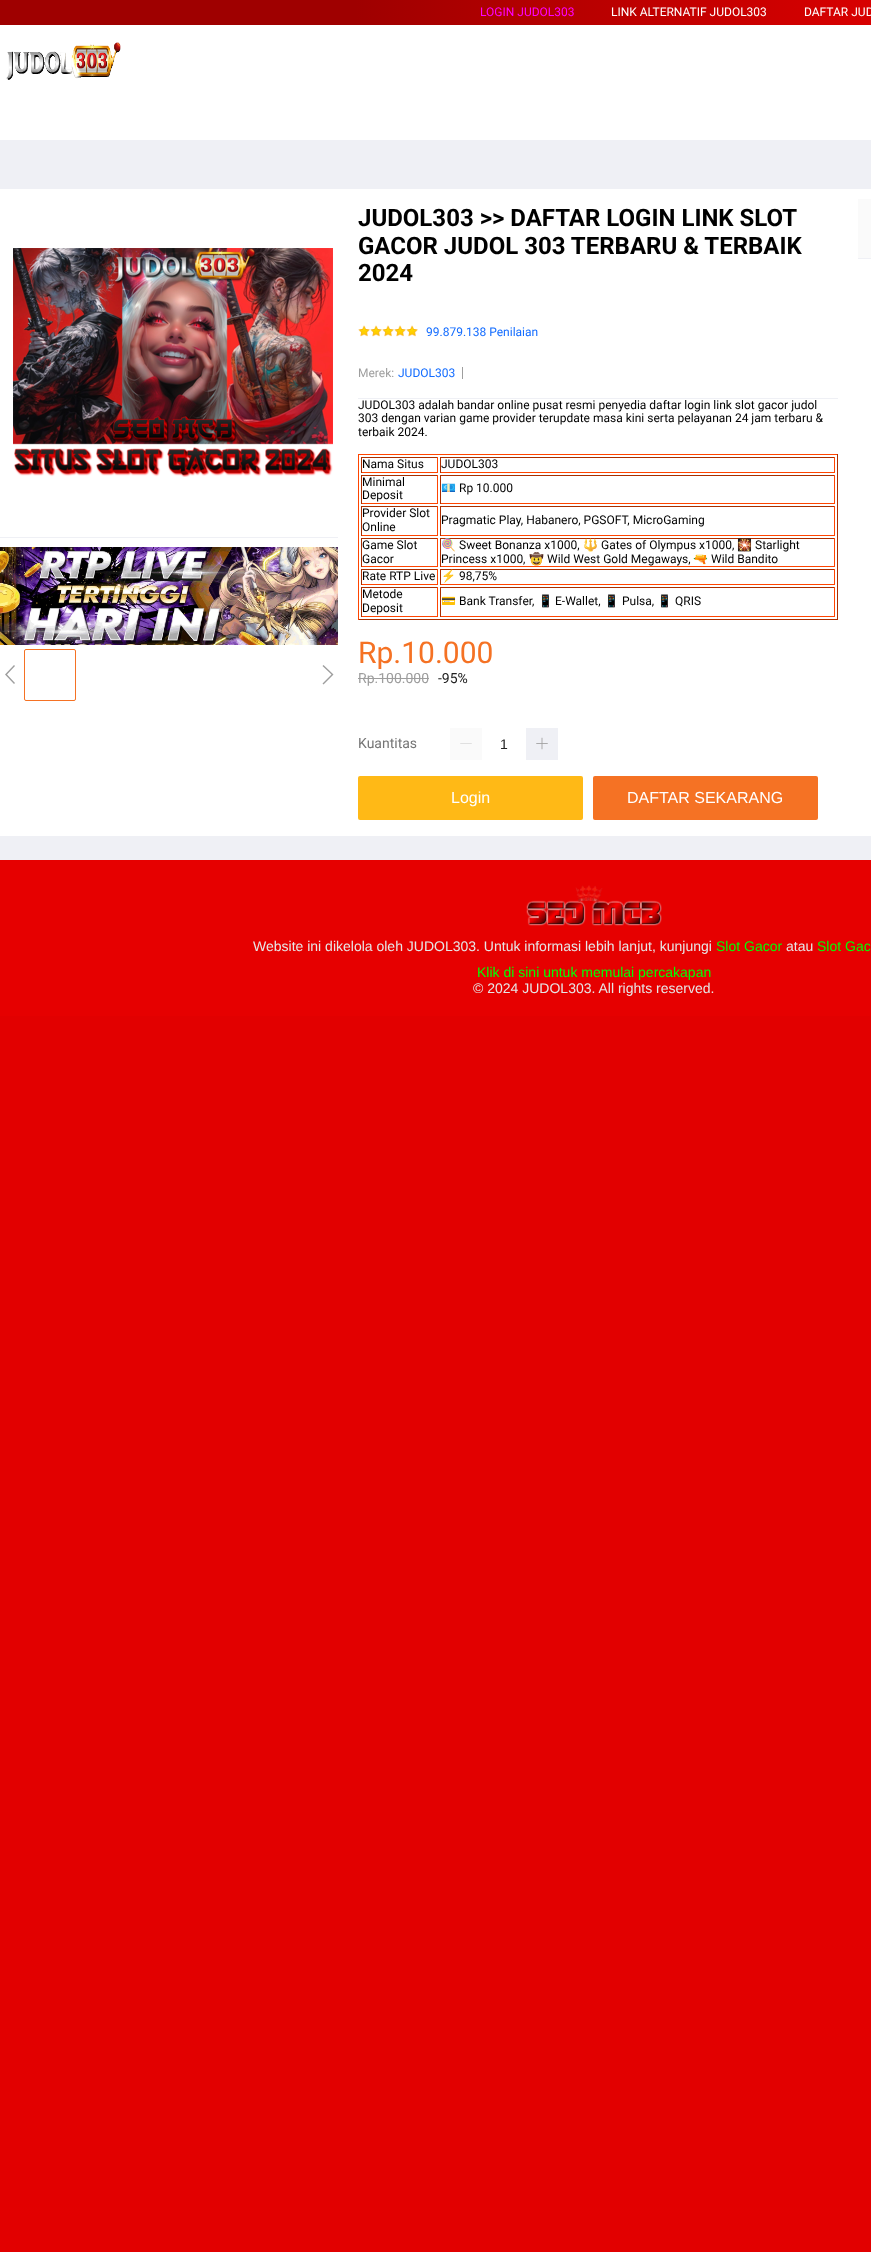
<?xml version="1.0" encoding="UTF-8"?>
<svg xmlns="http://www.w3.org/2000/svg" width="871" height="2252">
    <defs>
        <linearGradient id="g1" gradientUnits="userSpaceOnUse" x1="0" y1="14" x2="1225" y2="11"><stop offset="0.29" stop-color="#9F0000"/><stop offset="1" stop-color="#FF0000"/></linearGradient>
    </defs>
    <rect width="100%" height="100%" fill="#E20000"/>
    <rect x="0" y="25" width="871" height="115" fill="#FFFFFF"/>
    <rect x="0" y="0" width="871" height="25" fill="url(#g1)"/>
    <text x="480" y="16" font-family="Roboto" font-size="12" fill="#FF00FF">LOGIN JUDOL303</text>
    <text x="611" y="16" font-family="Roboto" font-size="12" fill="#FFFFFF">LINK ALTERNATIF JUDOL303</text>
    <text x="804" y="16" font-family="Roboto" font-size="12" fill="#FFFFFF">DAFTAR JUD</text>
    <image x="6" y="42" width="115" height="38" href="img_01.png"/>
    <rect x="0" y="140" width="871" height="49" fill="#EFF0F5"/>
    <rect x="0" y="836" width="871" height="24" fill="#EFF0F5"/>
    <rect x="0" y="189" width="871" height="647" fill="#FFFFFF"/>
    <rect x="0" y="537" width="338" height="1" fill="#EFF0F5"/>
    <image x="13" y="248" width="320" height="229" href="img_02.png"/>
    <image x="0" y="547" width="338" height="98" href="img_03.png"/>
    <path d="M 15 683 L 7 674.5 L 15 666 L 14 665 L 5 674.5 L 14 684 Z" fill="#9E9E9E"/>
    <rect x="24.5" y="649.5" width="51" height="51" rx="1.5" fill="none" stroke="#F57224"/>
    <path d="M 323.5 684.5 L 322.5 683.5 L 331.5 674.5 L 322.5 666 L 323.5 665 L 333.5 674.5 Z" fill="#9E9E9E"/>
    <text font-family="Roboto" font-size="24" font-weight="700" fill="#000000">
        <tspan x="358" y="226">JUDOL303 &gt;&gt; DAFTAR LOGIN LINK SLOT</tspan>
        <tspan x="358" y="254">GACOR JUDOL 303 TERBARU &amp; TERBAIK</tspan>
        <tspan x="358" y="281">2024</tspan>
    </text>
    <image x="358" y="325" width="12" height="12" href="img_04.png"/>
    <image x="370" y="325" width="12" height="12" href="img_04.png"/>
    <image x="382" y="325" width="12" height="12" href="img_04.png"/>
    <image x="394" y="325" width="12" height="12" href="img_04.png"/>
    <image x="406" y="325" width="12" height="12" href="img_04.png"/>
    <text x="426" y="336" font-family="Roboto" font-size="12" fill="#136CFF">99.879.138 Penilaian</text>
    <rect x="358" y="398" width="480" height="1" fill="#EFF0F5"/>
    <text x="358" y="377" font-family="Roboto" font-size="12" fill="#9E9E9E">Merek:</text>
    <text x="398" y="377" font-family="Roboto" font-size="12" fill="#136CFF">JUDOL303</text>
    <rect x="462" y="367" width="1" height="12" fill="#9E9E9E"/>
    <text font-family="Roboto" font-size="12" fill="#000000">
        <tspan x="358" y="409">JUDOL303 adalah bandar online pusat resmi penyedia daftar login link slot gacor judol</tspan>
        <tspan x="358" y="422">303 dengan varian game provider terupdate masa kini serta pelayanan 24 jam terbaru &amp;</tspan>
        <tspan x="358" y="436">terbaik 2024.</tspan>
    </text>
    <rect x="358" y="454" width="480" height="1" fill="#FF4500"/>
    <rect x="837" y="454" width="1" height="166" fill="#AA2E00"/>
    <rect x="358" y="619" width="480" height="1" fill="#AA2E00"/>
    <rect x="358" y="454" width="1" height="166" fill="#FF4500"/>
    <rect x="361" y="457" width="77" height="1" fill="#AA2E00"/>
    <rect x="437" y="457" width="1" height="16" fill="#FF4500"/>
    <rect x="361" y="472" width="77" height="1" fill="#FF4500"/>
    <rect x="361" y="457" width="1" height="16" fill="#AA2E00"/>
    <text x="362" y="468" font-family="Roboto" font-size="12" fill="#000000">Nama Situs</text>
    <rect x="440" y="457" width="395" height="1" fill="#AA2E00"/>
    <rect x="834" y="457" width="1" height="16" fill="#FF4500"/>
    <rect x="440" y="472" width="395" height="1" fill="#FF4500"/>
    <rect x="440" y="457" width="1" height="16" fill="#AA2E00"/>
    <text x="441" y="468" font-family="Roboto" font-size="12" fill="#000000">JUDOL303</text>
    <rect x="361" y="475" width="77" height="1" fill="#AA2E00"/>
    <rect x="437" y="475" width="1" height="29" fill="#FF4500"/>
    <rect x="361" y="503" width="77" height="1" fill="#FF4500"/>
    <rect x="361" y="475" width="1" height="29" fill="#AA2E00"/>
    <text font-family="Roboto" font-size="12" fill="#000000">
        <tspan x="362" y="486">Minimal</tspan>
        <tspan x="362" y="499">Deposit</tspan>
    </text>
    <rect x="440" y="475" width="395" height="1" fill="#AA2E00"/>
    <rect x="834" y="475" width="1" height="29" fill="#FF4500"/>
    <rect x="440" y="503" width="395" height="1" fill="#FF4500"/>
    <rect x="440" y="475" width="1" height="29" fill="#AA2E00"/>
    <text x="441" y="492" font-family="Noto Color Emoji" font-size="12" fill="#000000">💶</text>
    <text x="459" y="492" font-family="Roboto" font-size="12" fill="#000000">Rp 10.000</text>
    <rect x="361" y="506" width="77" height="1" fill="#AA2E00"/>
    <rect x="437" y="506" width="1" height="30" fill="#FF4500"/>
    <rect x="361" y="535" width="77" height="1" fill="#FF4500"/>
    <rect x="361" y="506" width="1" height="30" fill="#AA2E00"/>
    <text font-family="Roboto" font-size="12" fill="#000000">
        <tspan x="362" y="517">Provider Slot</tspan>
        <tspan x="362" y="531">Online</tspan>
    </text>
    <rect x="440" y="506" width="395" height="1" fill="#AA2E00"/>
    <rect x="834" y="506" width="1" height="30" fill="#FF4500"/>
    <rect x="440" y="535" width="395" height="1" fill="#FF4500"/>
    <rect x="440" y="506" width="1" height="30" fill="#AA2E00"/>
    <text x="441" y="524" font-family="Roboto" font-size="12" fill="#000000">Pragmatic Play, Habanero, PGSOFT, MicroGaming</text>
    <rect x="361" y="538" width="77" height="1" fill="#AA2E00"/>
    <rect x="437" y="538" width="1" height="29" fill="#FF4500"/>
    <rect x="361" y="566" width="77" height="1" fill="#FF4500"/>
    <rect x="361" y="538" width="1" height="29" fill="#AA2E00"/>
    <text font-family="Roboto" font-size="12" fill="#000000">
        <tspan x="362" y="549">Game Slot</tspan>
        <tspan x="362" y="563">Gacor</tspan>
    </text>
    <rect x="440" y="538" width="395" height="1" fill="#AA2E00"/>
    <rect x="834" y="538" width="1" height="29" fill="#FF4500"/>
    <rect x="440" y="566" width="395" height="1" fill="#FF4500"/>
    <rect x="440" y="538" width="1" height="29" fill="#AA2E00"/>
    <text x="441" y="549" font-family="Noto Color Emoji" font-size="12" fill="#000000">🍭</text>
    <text x="459" y="549" font-family="Roboto" font-size="12" fill="#000000">Sweet Bonanza x1000,</text>
    <text x="583" y="549" font-family="Noto Color Emoji" font-size="12" fill="#000000">🔱</text>
    <text x="601" y="549" font-family="Roboto" font-size="12" fill="#000000">Gates of Olympus x1000,</text>
    <text x="737" y="549" font-family="Noto Color Emoji" font-size="12" fill="#000000">🎇</text>
    <text x="755" y="549" font-family="Roboto" font-size="12" fill="#000000">Starlight</text>
    <text x="441" y="563" font-family="Roboto" font-size="12" fill="#000000">Princess x1000,</text>
    <text x="529" y="563" font-family="Noto Color Emoji" font-size="12" fill="#000000">🤠</text>
    <text x="547" y="563" font-family="Roboto" font-size="12" fill="#000000">Wild West Gold Megaways,</text>
    <text x="693" y="563" font-family="Noto Color Emoji" font-size="12" fill="#000000">🔫</text>
    <text x="711" y="563" font-family="Roboto" font-size="12" fill="#000000">Wild Bandito</text>
    <rect x="361" y="569" width="77" height="1" fill="#AA2E00"/>
    <rect x="437" y="569" width="1" height="16" fill="#FF4500"/>
    <rect x="361" y="584" width="77" height="1" fill="#FF4500"/>
    <rect x="361" y="569" width="1" height="16" fill="#AA2E00"/>
    <text x="362" y="580" font-family="Roboto" font-size="12" fill="#000000">Rate RTP Live</text>
    <rect x="440" y="569" width="395" height="1" fill="#AA2E00"/>
    <rect x="834" y="569" width="1" height="16" fill="#FF4500"/>
    <rect x="440" y="584" width="395" height="1" fill="#FF4500"/>
    <rect x="440" y="569" width="1" height="16" fill="#AA2E00"/>
    <text x="441" y="580" font-family="Noto Color Emoji" font-size="12" fill="#000000">⚡</text>
    <text x="459" y="580" font-family="Roboto" font-size="12" fill="#000000">98,75%</text>
    <rect x="361" y="587" width="77" height="1" fill="#AA2E00"/>
    <rect x="437" y="587" width="1" height="30" fill="#FF4500"/>
    <rect x="361" y="616" width="77" height="1" fill="#FF4500"/>
    <rect x="361" y="587" width="1" height="30" fill="#AA2E00"/>
    <text font-family="Roboto" font-size="12" fill="#000000">
        <tspan x="362" y="598">Metode</tspan>
        <tspan x="362" y="612">Deposit</tspan>
    </text>
    <rect x="440" y="587" width="395" height="1" fill="#AA2E00"/>
    <rect x="834" y="587" width="1" height="30" fill="#FF4500"/>
    <rect x="440" y="616" width="395" height="1" fill="#FF4500"/>
    <rect x="440" y="587" width="1" height="30" fill="#AA2E00"/>
    <text x="441" y="605" font-family="Noto Color Emoji" font-size="12" fill="#000000">💳</text>
    <text x="459" y="605" font-family="Roboto" font-size="12" fill="#000000">Bank Transfer,</text>
    <text x="538" y="605" font-family="Noto Color Emoji" font-size="12" fill="#000000">📱</text>
    <text x="555" y="605" font-family="Roboto" font-size="12" fill="#000000">E-Wallet,</text>
    <text x="604" y="605" font-family="Noto Color Emoji" font-size="12" fill="#000000">📱</text>
    <text x="622" y="605" font-family="Roboto" font-size="12" fill="#000000">Pulsa,</text>
    <text x="657" y="605" font-family="Noto Color Emoji" font-size="12" fill="#000000">📱</text>
    <text x="675" y="605" font-family="Roboto" font-size="12" fill="#000000">QRIS</text>
    <text x="358" y="663" font-family="Roboto" font-size="30" fill="#F57224">Rp.10.000</text>
    <text x="358" y="683" font-family="Roboto" font-size="14" fill="#9E9E9E">Rp.100.000</text>
    <rect x="358" y="678" width="71" height="1" fill="#9E9E9E"/>
    <text x="438" y="683" font-family="Roboto" font-size="14" fill="#212121">-95%</text>
    <text x="358" y="748" font-family="Roboto" font-size="14" fill="#757575">Kuantitas</text>
    <rect x="450" y="728" width="32" height="32" fill="#FAFAFA"/>
    <image x="460" y="743" width="12" height="1" href="img_05.png"/>
    <rect x="526" y="728" width="32" height="32" fill="#EFF0F5"/>
    <image x="536" y="737" width="12" height="13" href="img_06.png"/>
    <text x="500" y="749" font-family="Liberation Sans" font-size="14" fill="#212121">1</text>
    <rect x="358" y="776" width="225" height="44" rx="2" fill="#FFB916"/>
    <text x="451" y="803" font-family="Liberation Sans" font-size="16" fill="#FFFFFF">Login</text>
    <rect x="593" y="776" width="225" height="44" rx="2" fill="#F57224"/>
    <text x="627" y="803" font-family="Liberation Sans" font-size="16" fill="#FFFFFF">DAFTAR SEKARANG</text>
    <rect x="858" y="199" width="13" height="59" fill="#FAFAFA"/>
    <rect x="858" y="258" width="13" height="1" fill="#EFF0F5"/>
    <rect x="0" y="860" width="871" height="156" fill="#E60000"/>
    <image x="526" y="885" width="136" height="41" href="img_07.png"/>
    <text x="253" y="951" font-family="Liberation Sans" font-size="14" fill="#E6E6E6">Website ini dikelola oleh JUDOL303. Untuk informasi lebih lanjut, kunjungi</text>
    <text x="716" y="951" font-family="Liberation Sans" font-size="14" fill="#00FF04">Slot Gacor</text>
    <text x="786" y="951" font-family="Liberation Sans" font-size="14" fill="#E6E6E6">atau</text>
    <text x="817" y="951" font-family="Liberation Sans" font-size="14" fill="#00FF04">Slot Gac</text>
    <text x="477" y="977" font-family="Liberation Sans" font-size="14" fill="#00FF04">Klik di sini untuk memulai percakapan</text>
    <text x="473" y="993" font-family="Liberation Sans" font-size="14" fill="#E6E6E6">© 2024 JUDOL303. All rights reserved.</text>
</svg>
